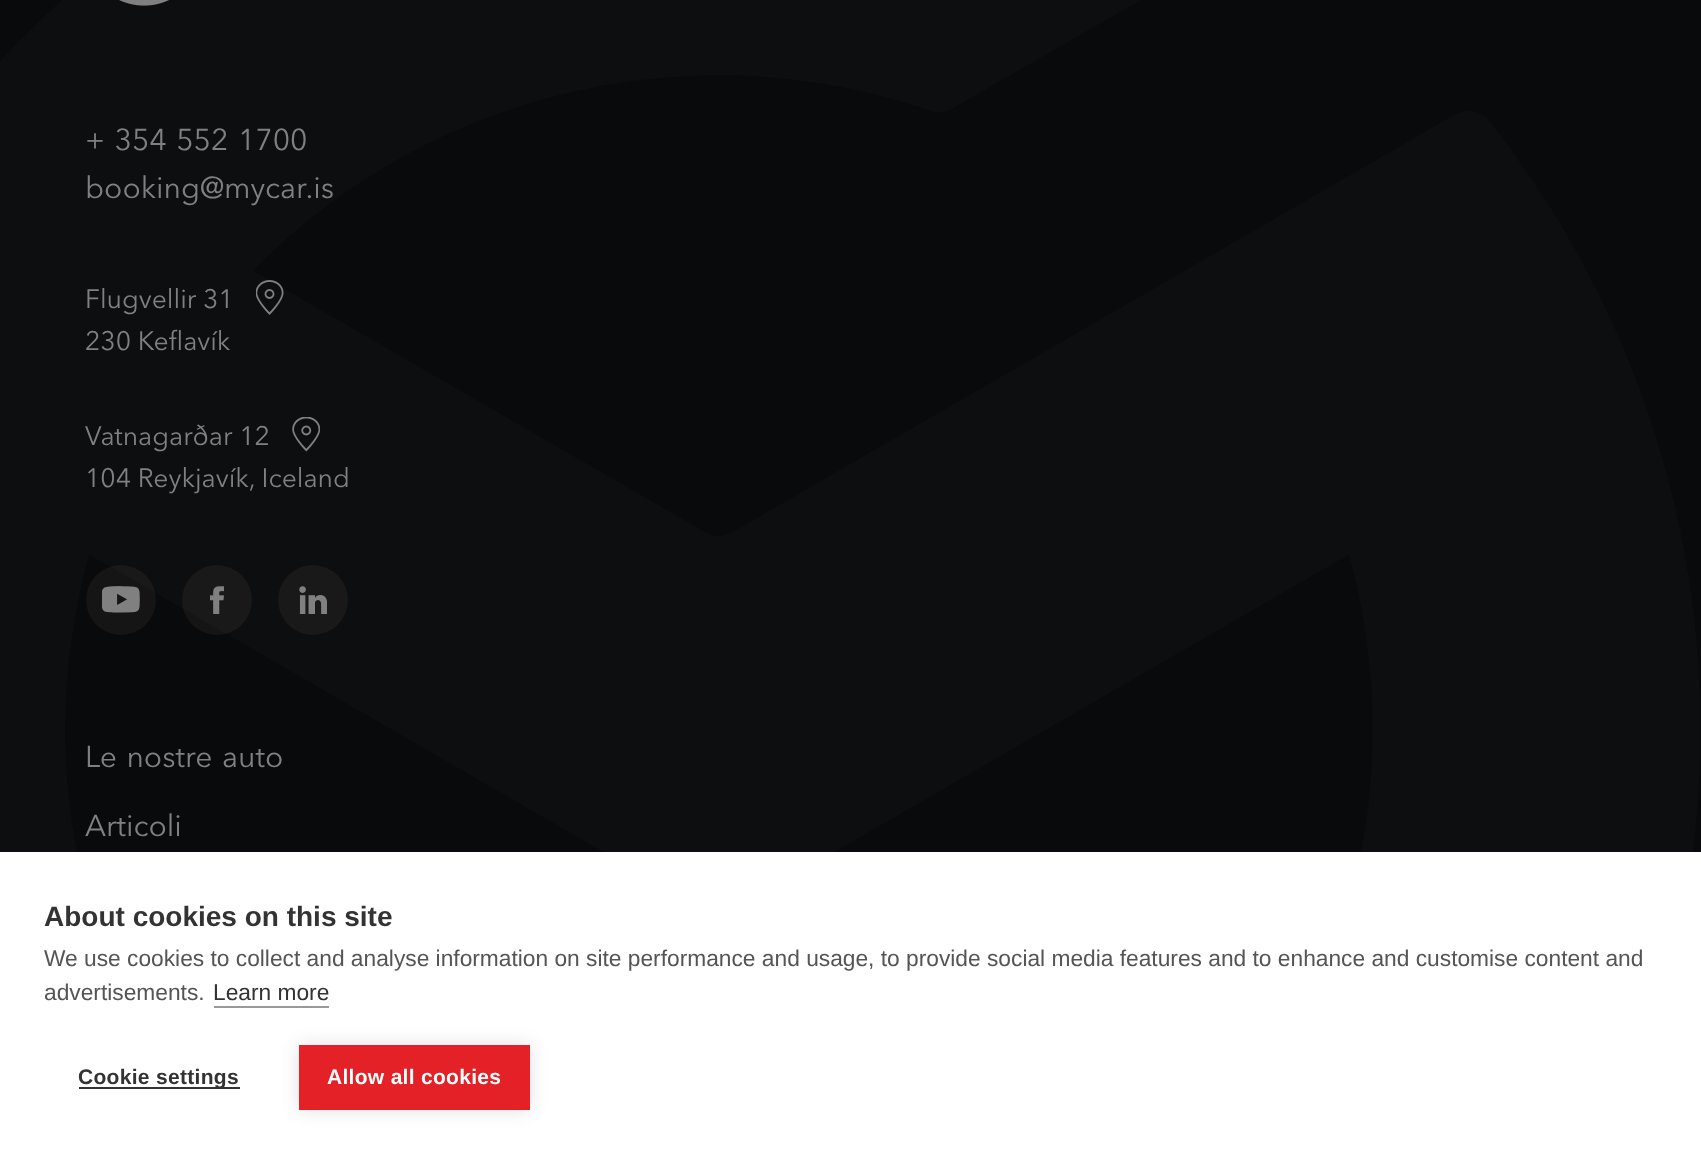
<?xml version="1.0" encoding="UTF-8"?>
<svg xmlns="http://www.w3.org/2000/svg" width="1701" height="1153">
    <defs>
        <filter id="blur1" x="-50%" y="-200%" width="200%" height="500%"><feGaussianBlur stdDeviation="9"/></filter>
    </defs>
    <rect width="100%" height="100%" fill="#090A0B"/>
    <image x="119" y="0" width="50" height="6" href="img_02.png"/>
    <text font-family="Avenir Next" font-size="30" fill="#808080">
        <tspan x="85" y="150" word-spacing="2">+ 354 552 1700</tspan>
        <tspan x="85" y="198">booking@mycar.is</tspan>
    </text>
    <text x="85" y="308" font-family="Avenir Next" font-size="26.5" fill="#808080">Flugvellir 31</text>
    <image x="256" y="280" width="28" height="35" href="img_03.png"/>
    <text x="85" y="350" font-family="Avenir Next" font-size="26.5" fill="#808080">230 Keflavík</text>
    <text x="85" y="445" font-family="Avenir Next" font-size="26.5" fill="#808080">Vatnagarðar 12</text>
    <image x="292" y="417" width="28" height="35" href="img_04.png"/>
    <text x="85" y="487" font-family="Avenir Next" font-size="26.5" fill="#808080">104 Reykjavík, Iceland</text>
    <circle cx="121" cy="600" r="35" fill="#151516"/>
    <image x="102" y="586" width="38" height="27" href="img_05.png"/>
    <circle cx="217" cy="600" r="35" fill="#151516"/>
    <image x="210" y="586" width="14" height="28" href="img_06.png"/>
    <circle cx="313" cy="600" r="35" fill="#151516"/>
    <image x="299" y="586" width="28" height="28" href="img_07.png"/>
    <text x="85" y="767" word-spacing="2" font-family="Avenir Next" font-size="30" fill="#808080">Le nostre auto</text>
    <text x="85" y="836" font-family="Avenir Next" font-size="30" fill="#808080">Articoli</text>
    <image x="0" y="0" width="1700" height="852" href="img_01.png"/>
    <rect x="0" y="852" width="1701" height="301" fill="#FFFFFF"/>
    <text x="44" y="926" font-family="Liberation Sans" font-size="28" font-weight="700" fill="#333333">About cookies on this site</text>
    <text font-family="Liberation Sans" font-size="22.75" fill="#555555">
        <tspan x="44" y="966">We use cookies to collect and analyse information on site performance and usage, to provide social media features and to enhance and customise content and</tspan>
        <tspan x="44" y="1000">advertisements.</tspan>
    </text>
    <text x="213" y="1000" font-family="Liberation Sans" font-size="22.75" fill="#333333">Learn more</text>
    <rect x="214" y="1006" width="115" height="2" fill="#999999"/>
    <rect x="79" y="1087" width="161" height="2" fill="#333333"/>
    <text x="78" y="1084" font-family="Liberation Sans" font-size="21" font-weight="700" letter-spacing="0.3" fill="#333333">Cookie settings</text>
    <rect x="299" y="1045" width="231" height="65" fill="#000000" fill-opacity="0.12" filter="url(#blur1)"/>
    <rect x="299" y="1045" width="231" height="65" fill="#E42127"/>
    <text x="327" y="1084" font-family="Liberation Sans" font-size="21" font-weight="700" letter-spacing="0.3" fill="#FFFFFF">Allow all cookies</text>
</svg>
